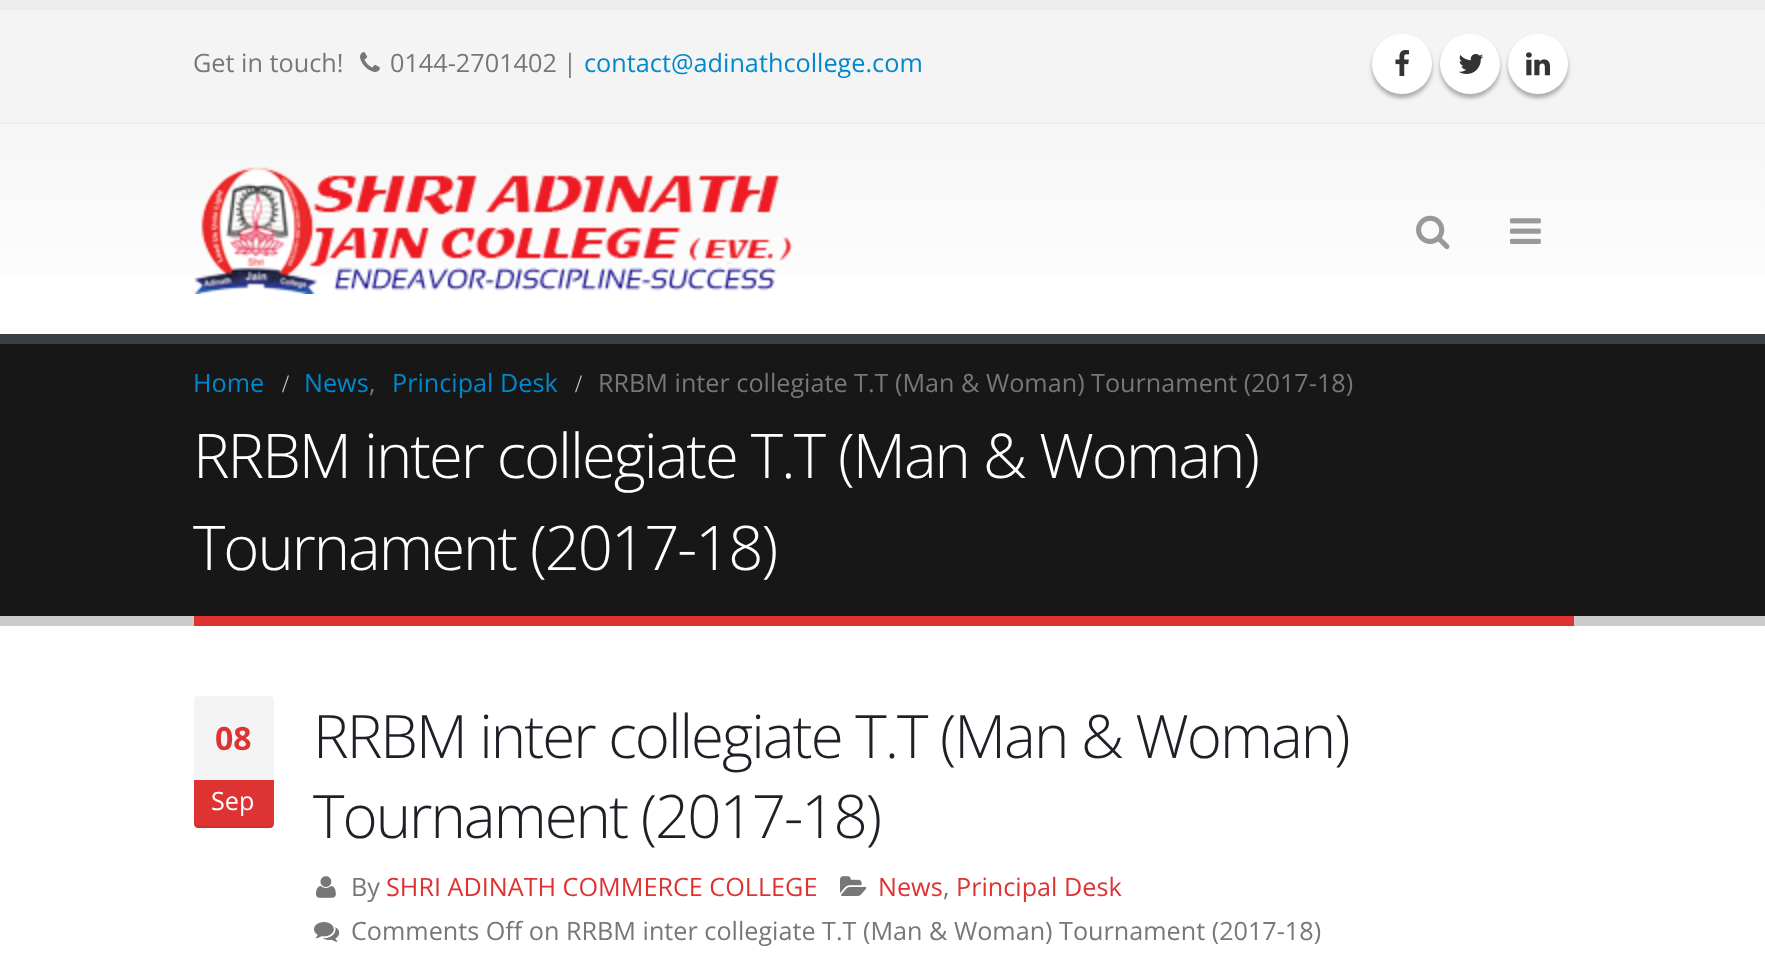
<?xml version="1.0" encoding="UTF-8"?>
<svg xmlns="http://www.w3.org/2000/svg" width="1765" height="972">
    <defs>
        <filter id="blur1" x="-50%" y="-200%" width="200%" height="500%"><feGaussianBlur stdDeviation="2"/></filter>
        <linearGradient id="g1" gradientUnits="userSpaceOnUse" x1="883" y1="124" x2="883" y2="334"><stop offset="0" stop-color="#F6F6F6"/><stop offset="1" stop-color="#FFFFFF"/></linearGradient>
    </defs>
    <rect width="100%" height="100%" fill="#FFFFFF"/>
    <rect x="0" y="0" width="1765" height="10" fill="#EDEDED"/>
    <rect x="0" y="10" width="1765" height="112" fill="#F4F4F4"/>
    <rect x="0" y="122" width="1765" height="2" fill="#EDEDED"/>
    <text x="193" y="72" font-family="Open Sans" font-size="25.25" fill="#777777">Get in touch!</text>
    <image x="360" y="52" width="20" height="20" href="img_01.png"/>
    <text x="390" y="72" font-family="Open Sans" font-size="25.25" fill="#777777">0144-2701402</text>
    <text x="563" y="72" font-family="Open Sans" font-size="25.25" fill="#777777">|</text>
    <text x="584" y="72" font-family="Open Sans" font-size="25.25" fill="#0088CC">contact@adinathcollege.com</text>
    <rect x="1372" y="38" width="60" height="60" rx="30" fill="#000000" fill-opacity="0.3" filter="url(#blur1)"/>
    <circle cx="1402" cy="64" r="30" fill="#FFFFFF"/>
    <image x="1395" y="50" width="14" height="26" href="img_02.png"/>
    <rect x="1440" y="38" width="60" height="60" rx="30" fill="#000000" fill-opacity="0.3" filter="url(#blur1)"/>
    <circle cx="1470" cy="64" r="30" fill="#FFFFFF"/>
    <image x="1458" y="54" width="26" height="20" href="img_03.png"/>
    <rect x="1508" y="38" width="60" height="60" rx="30" fill="#000000" fill-opacity="0.3" filter="url(#blur1)"/>
    <circle cx="1538" cy="64" r="30" fill="#FFFFFF"/>
    <image x="1526" y="52" width="24" height="24" href="img_04.png"/>
    <rect x="0" y="124" width="1765" height="152" fill="url(#g1)"/>
    <image x="194" y="167" width="599" height="127" href="img_05.png"/>
    <image x="1416" y="215" width="34" height="35" href="img_06.png"/>
    <image x="1510" y="218" width="31" height="26" href="img_07.png"/>
    <rect x="0" y="344" width="1765" height="272" fill="#171717"/>
    <rect x="0" y="334" width="1765" height="10" fill="#384045"/>
    <rect x="0" y="616" width="1765" height="10" fill="#CCCCCC"/>
    <text x="193" y="392" font-family="Open Sans" font-size="25.2" fill="#0088CC">Home</text>
    <text x="282" y="392" font-family="Liberation Serif" font-size="25.2" fill="#C3C3C3">/</text>
    <text x="304" y="392" font-family="Open Sans" font-size="25.2" fill="#0088CC">News</text>
    <text x="369" y="392" font-family="Open Sans" font-size="25.2" fill="#777777">,</text>
    <text x="392" y="392" font-family="Open Sans" font-size="25.2" fill="#0088CC">Principal Desk</text>
    <text x="575" y="392" font-family="Liberation Serif" font-size="25.2" fill="#C3C3C3">/</text>
    <text x="598" y="392" font-family="Open Sans" font-size="25.2" fill="#777777">RRBM inter collegiate T.T (Man &amp; Woman) Tournament (2017-18)</text>
    <rect x="194" y="616" width="1380" height="10" fill="#DD3333"/>
    <text font-family="Open Sans" font-size="61.6" font-weight="300" letter-spacing="-2" fill="#FFFFFF">
        <tspan x="193" y="478">RRBM inter collegiate T.T (Man &amp; Woman)</tspan>
        <tspan x="193" y="570">Tournament (2017-18)</tspan>
    </text>
    <path d="M 198 696 H 270 C 272 696 274 698 274 700 V 780 H 194 V 700 C 194 698 196 696 198 696 Z" fill="#F4F4F4"/>
    <text x="215" y="750" font-family="Open Sans" font-size="32" font-weight="700" fill="#DD3333">08</text>
    <path d="M 194 780 H 274 V 824 C 274 826 272 828 270 828 H 198 C 196 828 194 826 194 824 Z" fill="#DD3333"/>
    <path d="M 194 822 C 194 831 202 828 210 828 H 258 C 266 828 274 831 274 822 C 274 824 272 826 270 826 H 198 C 196 826 194 824 194 822 Z" fill="#000000" fill-opacity="0.07"/>
    <text x="211" y="810" font-family="Open Sans" font-size="25.2" fill="#FFFFFF">Sep</text>
    <text font-family="Open Sans" font-size="60" font-weight="300" letter-spacing="-2" fill="#1D2127">
        <tspan x="313" y="758">RRBM inter collegiate T.T (Man &amp; Woman)</tspan>
        <tspan x="313" y="838">Tournament (2017-18)</tspan>
    </text>
    <image x="316" y="876" width="20" height="22" href="img_08.png"/>
    <text x="351" y="896" font-family="Open Sans" font-size="25.2" fill="#777777">By</text>
    <text x="386" y="896" font-family="Open Sans" font-size="25.2" fill="#DD3333">SHRI ADINATH COMMERCE COLLEGE</text>
    <image x="840" y="876" width="27" height="20" href="img_09.png"/>
    <text x="878" y="896" font-family="Open Sans" font-size="25.2" fill="#DD3333">News</text>
    <text x="943" y="896" font-family="Open Sans" font-size="25.2" fill="#777777">,</text>
    <text x="956" y="896" font-family="Open Sans" font-size="25.2" fill="#DD3333">Principal Desk</text>
    <image x="314" y="922" width="26" height="20" href="img_10.png"/>
    <text x="351" y="940" font-family="Open Sans" font-size="25.2" fill="#777777">Comments Off on RRBM inter collegiate T.T (Man &amp; Woman) Tournament (2017-18)</text>
</svg>
